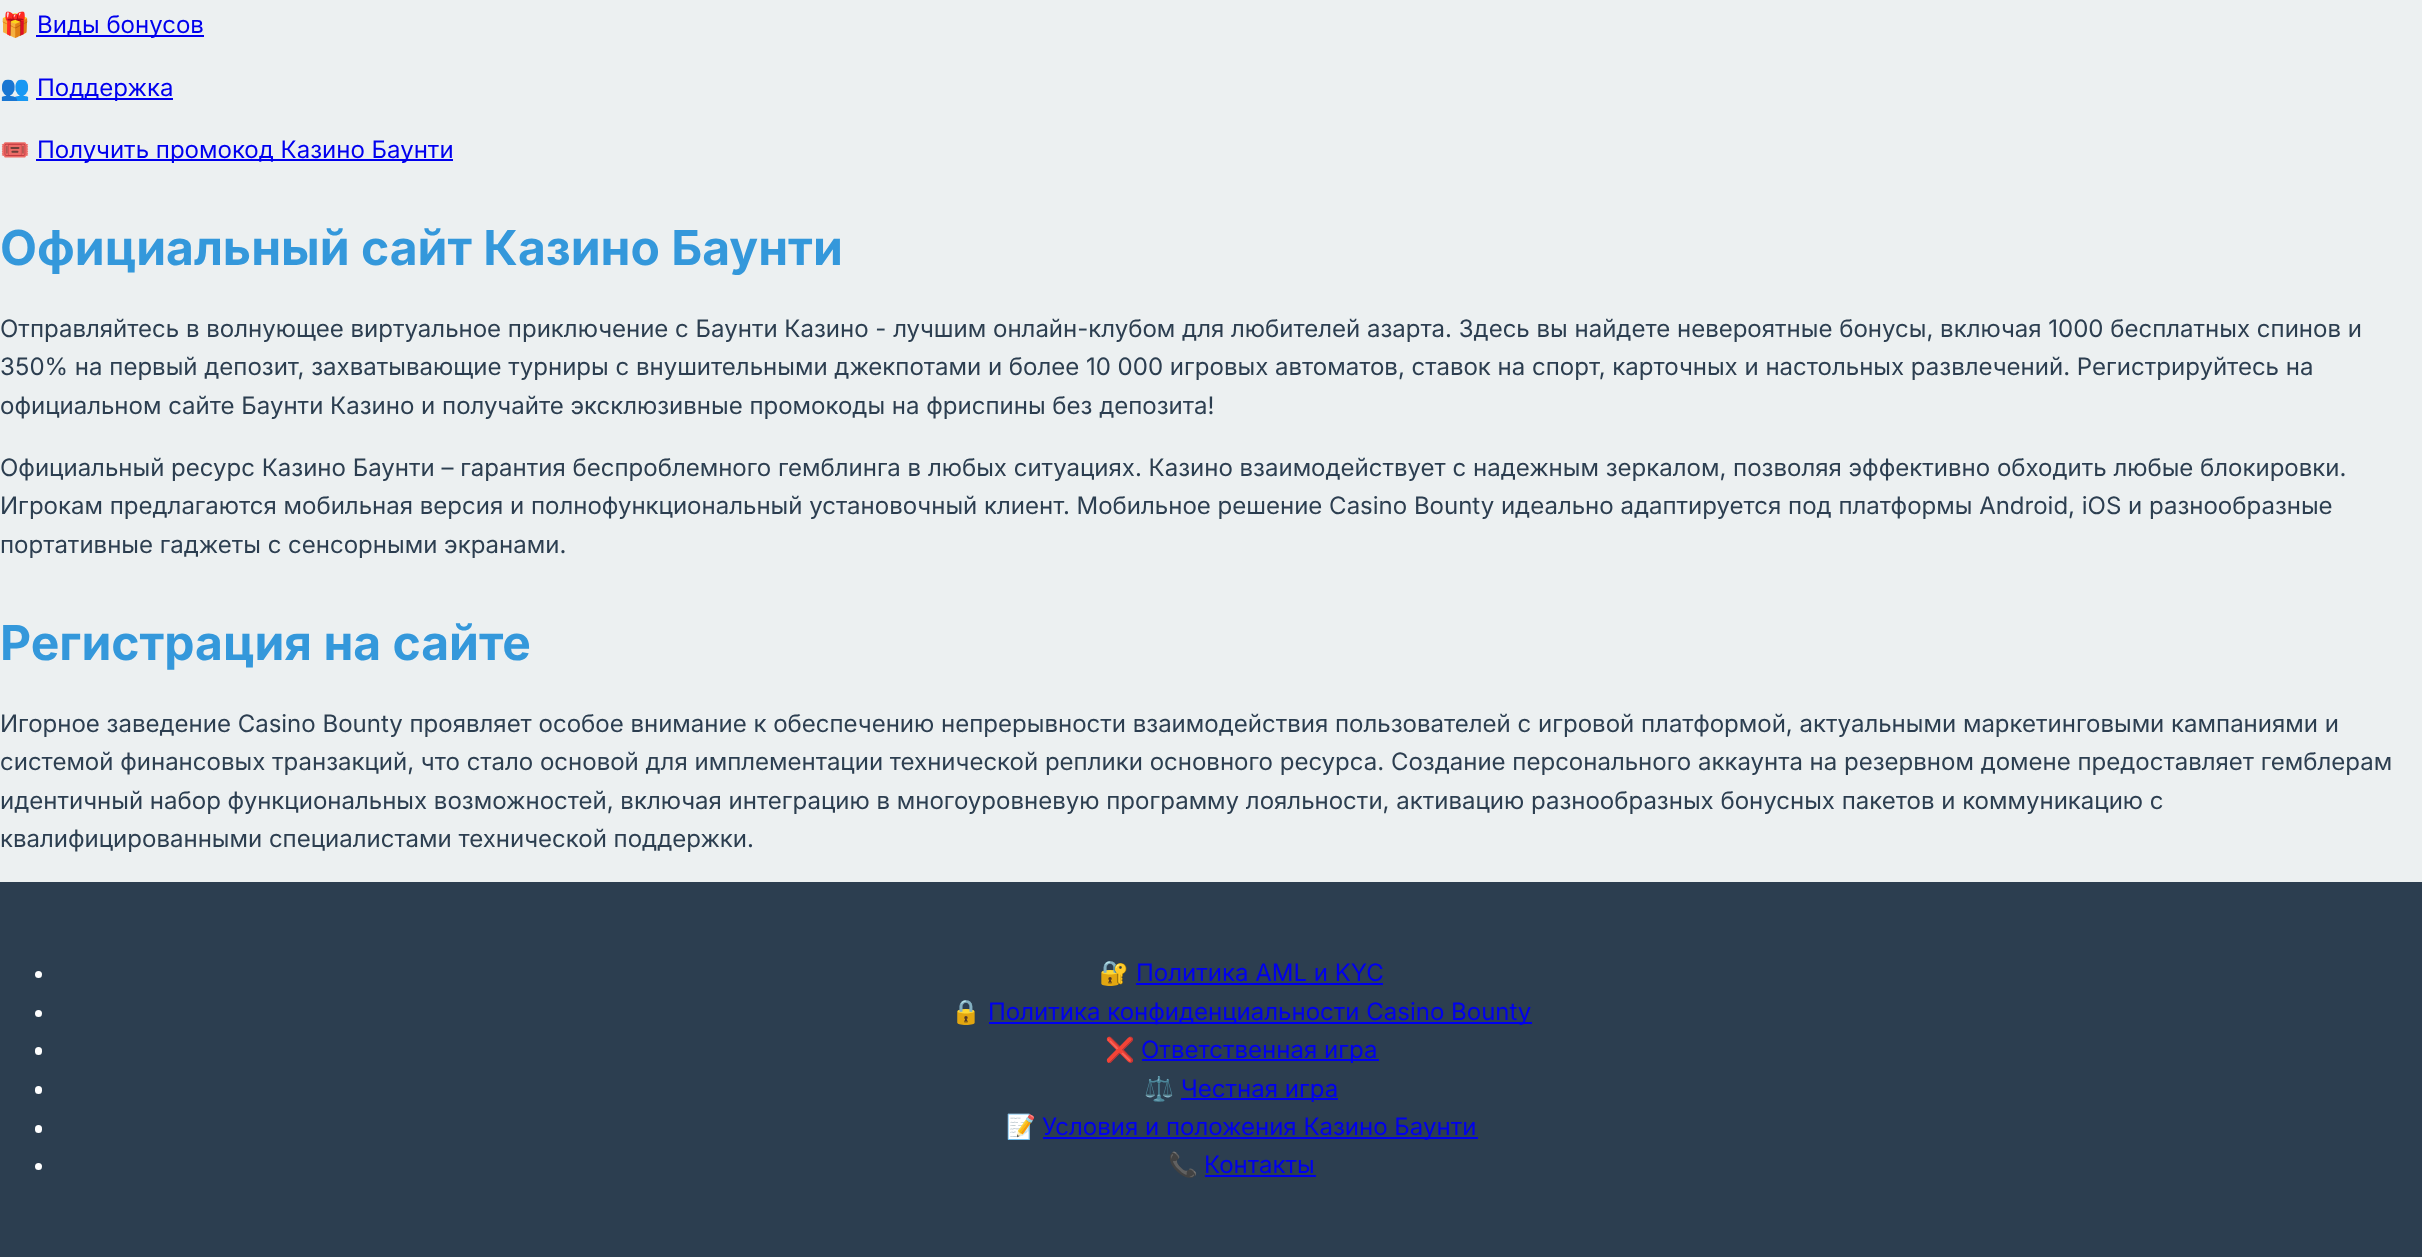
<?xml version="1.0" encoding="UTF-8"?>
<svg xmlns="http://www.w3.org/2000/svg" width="2422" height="1257">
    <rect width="100%" height="100%" fill="#ECF0F1"/>
    <text x="0" y="33" font-family="Noto Color Emoji" font-size="24" fill="#2C3E50">🎁</text>
    <rect x="36" y="35" width="168" height="2" fill="#0000EE"/>
    <text x="37" y="33" font-family="Inter" font-size="24" fill="#0000EE">Виды бонусов</text>
    <text x="0" y="96" font-family="Noto Color Emoji" font-size="24" fill="#2C3E50">👥</text>
    <rect x="36" y="98" width="137" height="2" fill="#0000EE"/>
    <text x="37" y="96" font-family="Inter" font-size="24" fill="#0000EE">Поддержка</text>
    <text x="0" y="158" font-family="Noto Color Emoji" font-size="24" fill="#2C3E50">🎟️</text>
    <rect x="36" y="159" width="417" height="2" fill="#0000EE"/>
    <text x="37" y="158" font-family="Inter" font-size="24" fill="#0000EE">Получить промокод Казино Баунти</text>
    <text x="0" y="265" font-family="Inter" font-size="48" font-weight="700" fill="#3498DB">Официальный сайт Казино Баунти</text>
    <text font-family="Inter" font-size="24" fill="#2C3E50">
        <tspan x="0" y="337">Отправляйтесь в волнующее виртуальное приключение с Баунти Казино - лучшим онлайн-клубом для любителей азарта. Здесь вы найдете невероятные бонусы, включая 1000 бесплатных спинов и</tspan>
        <tspan x="0" y="375">350% на первый депозит, захватывающие турниры с внушительными джекпотами и более 10 000 игровых автоматов, ставок на спорт, карточных и настольных развлечений. Регистрируйтесь на</tspan>
        <tspan x="0" y="414">официальном сайте Баунти Казино и получайте эксклюзивные промокоды на фриспины без депозита!</tspan>
    </text>
    <text font-family="Inter" font-size="24" fill="#2C3E50">
        <tspan x="0" y="476">Официальный ресурс Казино Баунти – гарантия беспроблемного гемблинга в любых ситуациях. Казино взаимодействует с надежным зеркалом, позволяя эффективно обходить любые блокировки.</tspan>
        <tspan x="0" y="514">Игрокам предлагаются мобильная версия и полнофункциональный установочный клиент. Мобильное решение Casino Bounty идеально адаптируется под платформы Android, iOS и разнообразные</tspan>
        <tspan x="0" y="553">портативные гаджеты с сенсорными экранами.</tspan>
    </text>
    <text x="0" y="660" font-family="Inter" font-size="48" font-weight="700" fill="#3498DB">Регистрация на сайте</text>
    <text font-family="Inter" font-size="24" fill="#2C3E50">
        <tspan x="0" y="732">Игорное заведение Casino Bounty проявляет особое внимание к обеспечению непрерывности взаимодействия пользователей с игровой платформой, актуальными маркетинговыми кампаниями и</tspan>
        <tspan x="0" y="770">системой финансовых транзакций, что стало основой для имплементации технической реплики основного ресурса. Создание персонального аккаунта на резервном домене предоставляет гемблерам</tspan>
        <tspan x="0" y="809">идентичный набор функциональных возможностей, включая интеграцию в многоуровневую программу лояльности, активацию разнообразных бонусных пакетов и коммуникацию с</tspan>
        <tspan x="0" y="847">квалифицированными специалистами технической поддержки.</tspan>
    </text>
    <rect x="0" y="882" width="2422" height="375" fill="#2C3E50"/>
    <circle cx="38.5" cy="974.5" r="3.5" fill="#FFFFFF"/>
    <text x="1099" y="981" font-family="Noto Color Emoji" font-size="24" fill="#FFFFFF">🔐</text>
    <text x="1136" y="981" font-family="Inter" font-size="24" fill="#0000EE">Политика AML и KYC</text>
    <rect x="1136" y="983" width="247" height="2" fill="#0000EE"/>
    <circle cx="38.5" cy="1013.5" r="3.5" fill="#FFFFFF"/>
    <text x="951" y="1020" font-family="Noto Color Emoji" font-size="24" fill="#FFFFFF">🔒</text>
    <rect x="989" y="1022" width="543" height="2" fill="#0000EE"/>
    <text x="988" y="1020" font-family="Inter" font-size="24" fill="#0000EE">Политика конфиденциальности Casino Bounty</text>
    <rect x="35" y="1047" width="7" height="8" rx="3.5" fill="#FFFFFF"/>
    <text x="1105" y="1058" font-family="Noto Color Emoji" font-size="24" fill="#FFFFFF">❌</text>
    <rect x="1142" y="1059" width="237" height="2" fill="#0000EE"/>
    <text x="1141" y="1058" font-family="Inter" font-size="24" fill="#0000EE">Ответственная игра</text>
    <rect x="35" y="1086" width="7" height="8" rx="3.5" fill="#FFFFFF"/>
    <text x="1144" y="1097" font-family="Noto Color Emoji" font-size="24" fill="#FFFFFF">⚖️</text>
    <rect x="1181" y="1098" width="157" height="2" fill="#0000EE"/>
    <text x="1181" y="1097" font-family="Inter" font-size="24" fill="#0000EE">Честная игра</text>
    <rect x="35" y="1125" width="7" height="8" rx="3.5" fill="#FFFFFF"/>
    <text x="1006" y="1135" font-family="Noto Color Emoji" font-size="24" fill="#FFFFFF">📝</text>
    <rect x="1043" y="1137" width="435" height="2" fill="#0000EE"/>
    <text x="1042" y="1135" font-family="Inter" font-size="24" fill="#0000EE">Условия и положения Казино Баунти</text>
    <circle cx="38.5" cy="1166.5" r="3.5" fill="#FFFFFF"/>
    <text x="1168" y="1173" font-family="Noto Color Emoji" font-size="24" fill="#FFFFFF">📞</text>
    <text x="1204" y="1173" font-family="Inter" font-size="24" fill="#0000EE">Контакты</text>
    <rect x="1205" y="1175" width="111" height="2" fill="#0000EE"/>
</svg>
